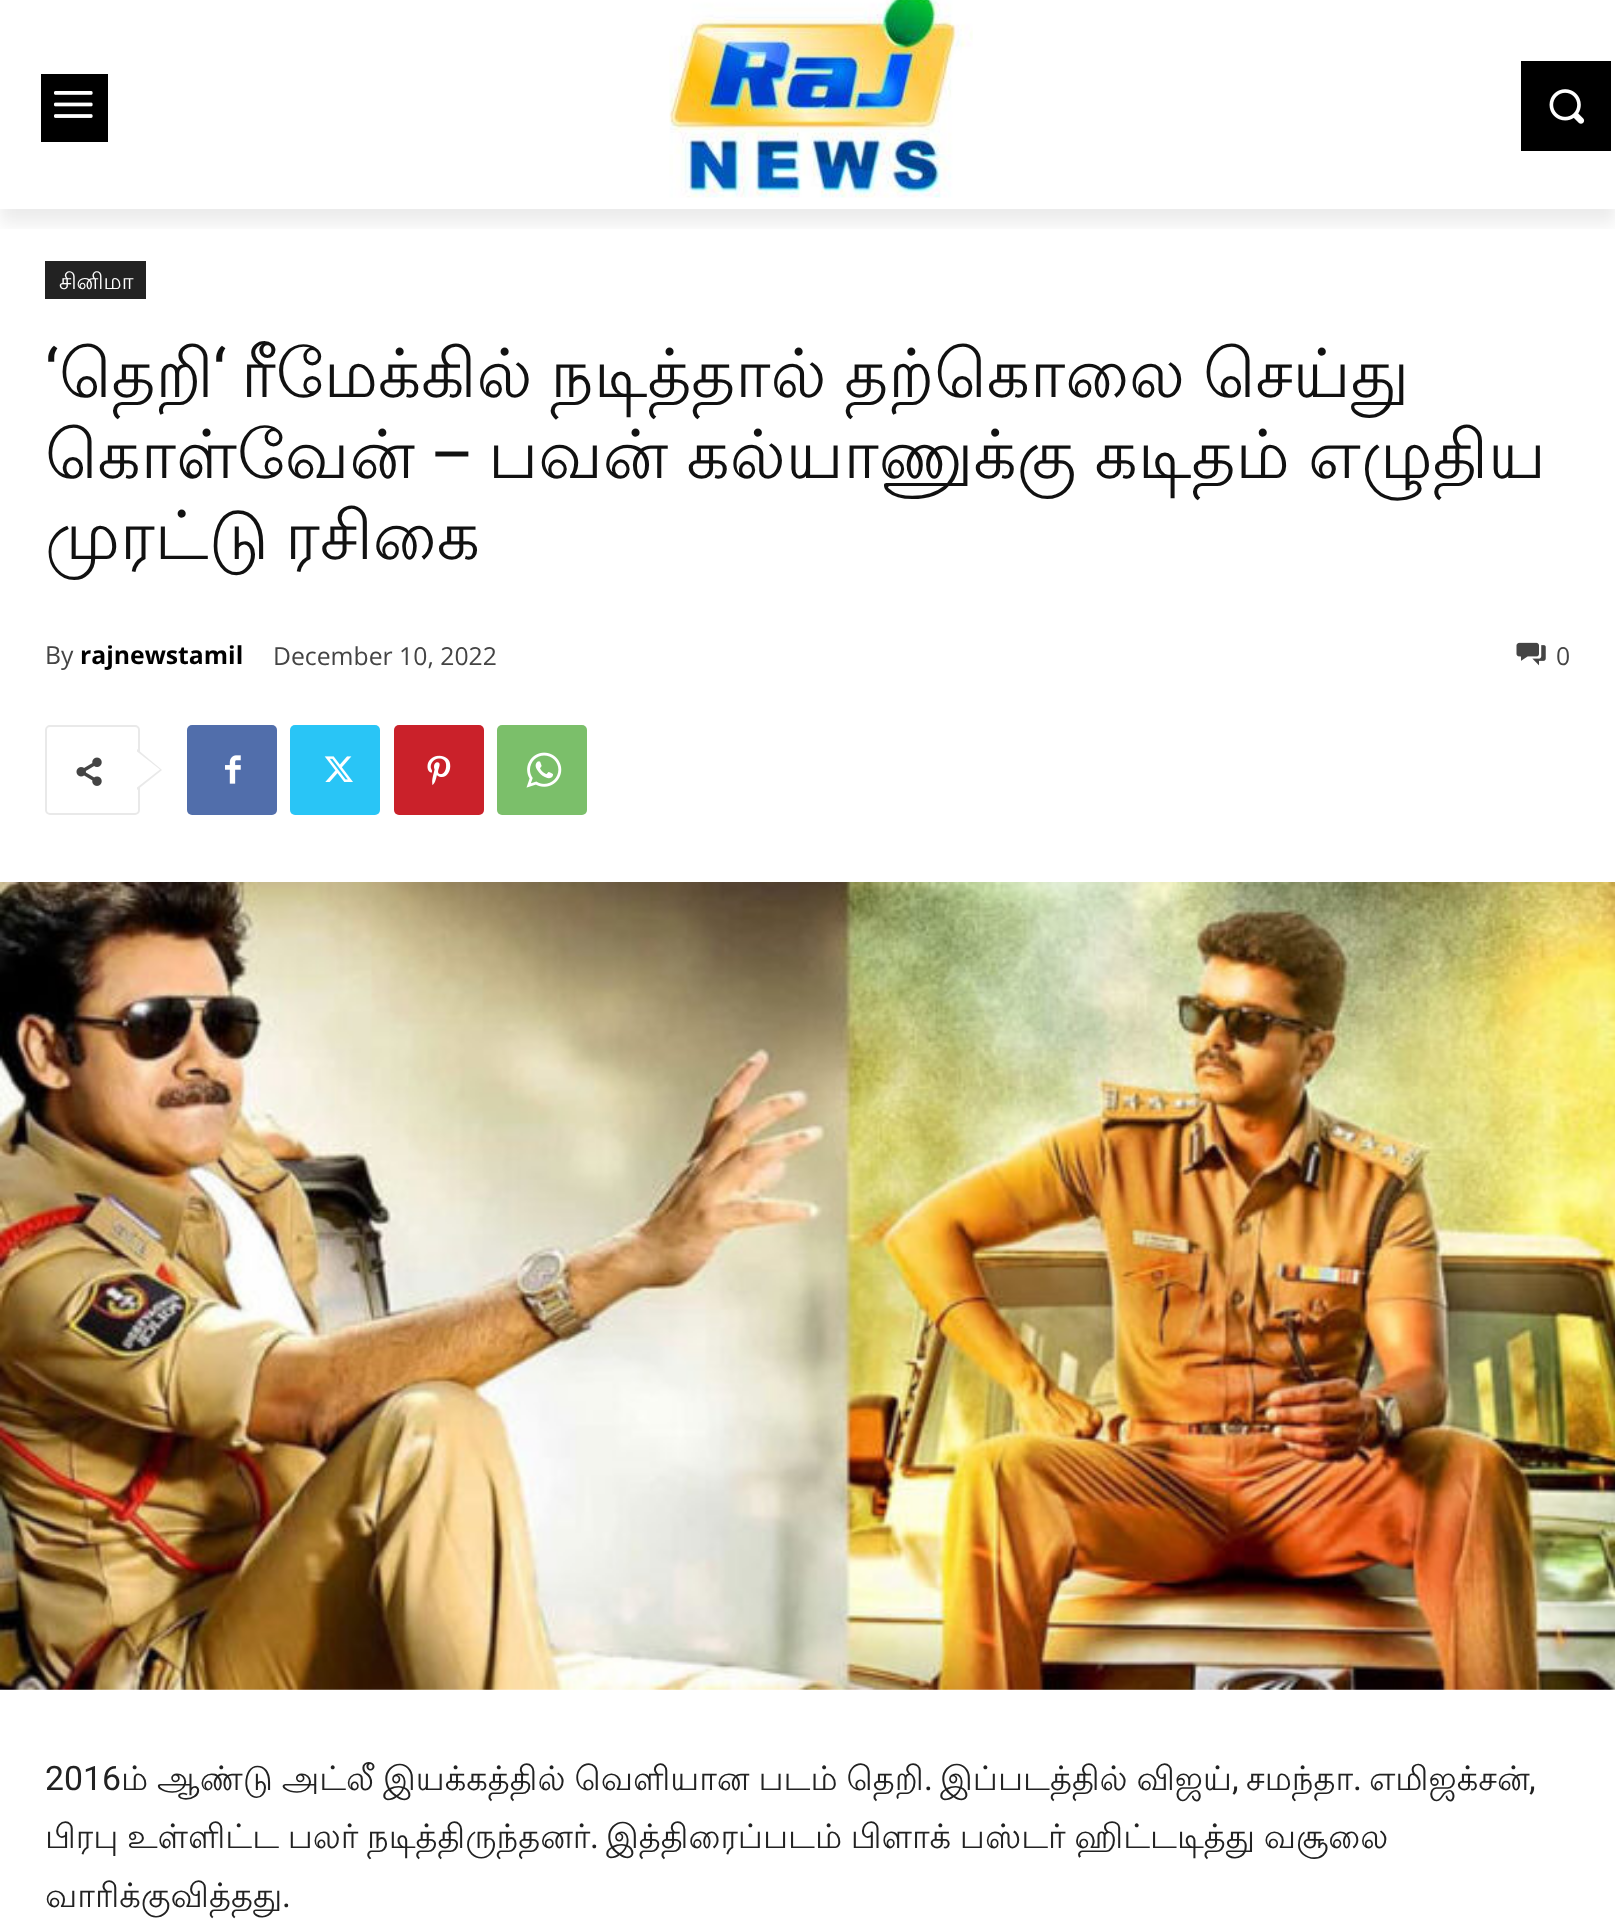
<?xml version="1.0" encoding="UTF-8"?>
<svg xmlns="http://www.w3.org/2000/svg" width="1615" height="1923">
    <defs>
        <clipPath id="clip1"><rect x="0" y="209" width="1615" height="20"/></clipPath>
        <filter id="blur1" x="-50%" y="-200%" width="200%" height="500%"><feGaussianBlur stdDeviation="9"/></filter>
    </defs>
    <rect width="100%" height="100%" fill="#FFFFFF"/>
    <rect x="41" y="74" width="67" height="68" fill="#000000"/>
    <image x="54" y="91" width="39" height="27" href="img_01.png"/>
    <image x="669" y="0" width="304" height="198" href="img_02.png"/>
    <rect x="1521" y="61" width="90" height="90" fill="#000000"/>
    <image x="1549" y="89" width="36" height="35" href="img_03.png"/>
    <g clip-path="url(#clip1)">
        <rect x="0" y="14" width="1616" height="209" fill="#000000" fill-opacity="0.08" filter="url(#blur1)"/>
    </g>
    <rect x="45" y="261" width="101" height="38" fill="#222222"/>
    <text x="59" y="289" font-family="Lohit Tamil" font-size="22.5" fill="#FFFFFF">சினிமா</text>
    <text x="45" y="397" font-family="Roboto" font-size="67.5" fill="#111111">‘</text>
    <text x="59" y="397" font-family="Lohit Tamil" font-size="67.5" fill="#111111">தெறி</text>
    <text x="213" y="397" font-family="Roboto" font-size="67.5" fill="#111111">‘</text>
    <text x="241" y="397" word-spacing="-2.5" font-family="Lohit Tamil" font-size="67.5" fill="#111111">ரீமேக்கில் நடித்தால் தற்கொலை செய்து</text>
    <text x="45" y="478" font-family="Lohit Tamil" font-size="67.5" fill="#111111">கொள்வேன்</text>
    <text x="430" y="478" font-family="Roboto" font-size="67.5" fill="#111111">–</text>
    <text x="488" y="478" word-spacing="-2" font-family="Lohit Tamil" font-size="67.5" fill="#111111">பவன் கல்யாணுக்கு கடிதம் எழுதிய</text>
    <text x="45" y="559" word-spacing="-4" font-family="Lohit Tamil" font-size="67.5" fill="#111111">முரட்டு ரசிகை</text>
    <text x="45" y="664" font-family="Open Sans" font-size="24.75" fill="#444444">By</text>
    <text x="80" y="664" font-family="Open Sans" font-size="24.75" font-weight="700" fill="#000000">rajnewstamil</text>
    <text x="273" y="665" font-family="Open Sans" font-size="24.75" fill="#444444">December 10, 2022</text>
    <image x="1516" y="642" width="30" height="24" href="img_04.png"/>
    <text x="1556" y="665" font-family="Open Sans" font-size="24.75" fill="#444444">0</text>
    <rect x="46" y="726" width="93" height="88" rx="4" fill="none" stroke="#E9E9E9" stroke-width="2"/>
    <path d="M 137 790 V 749 L 162 770 Z" fill="#E9E9E9"/>
    <image x="76" y="757" width="26" height="29" href="img_05.png"/>
    <path d="M 137 787.5 V 751.5 L 160 769.5 Z" fill="#FFFFFF"/>
    <rect x="187" y="725" width="90" height="90" rx="5" fill="#516EAB"/>
    <image x="225" y="755" width="16" height="29" href="img_06.png"/>
    <rect x="290" y="725" width="90" height="90" rx="5" fill="#29C5F6"/>
    <image x="324" y="756" width="29" height="26" href="img_07.png"/>
    <rect x="394" y="725" width="90" height="90" rx="5" fill="#CA212A"/>
    <image x="427" y="755" width="24" height="30" href="img_08.png"/>
    <rect x="497" y="725" width="90" height="90" rx="5" fill="#7BBF6A"/>
    <image x="526" y="752" width="36" height="36" href="img_09.png"/>
    <image x="0" y="882" width="1615" height="808" href="img_10.png"/>
    <text x="45" y="1790" font-family="Roboto" font-size="33.75" fill="#222222">2016</text>
    <text x="121" y="1790" word-spacing="-1.25" font-family="Lohit Tamil" font-size="33.75" fill="#222222">ம் ஆண்டு அட்லீ இயக்கத்தில் வெளியான படம் தெறி</text>
    <text x="924" y="1790" font-family="Roboto" font-size="33.75" fill="#222222">.</text>
    <text x="940" y="1790" word-spacing="-1.25" font-family="Lohit Tamil" font-size="33.75" fill="#222222">இப்படத்தில் விஜய்</text>
    <text x="1232" y="1790" font-family="Roboto" font-size="33.75" fill="#222222">,</text>
    <text x="1246" y="1790" font-family="Lohit Tamil" font-size="33.75" fill="#222222">சமந்தா</text>
    <text x="1353" y="1790" font-family="Roboto" font-size="33.75" fill="#222222">.</text>
    <text x="1369" y="1790" font-family="Lohit Tamil" font-size="33.75" fill="#222222">எமிஜக்சன்</text>
    <text x="1529" y="1790" font-family="Roboto" font-size="33.75" fill="#222222">,</text>
    <text x="45" y="1848" word-spacing="-1.5" font-family="Lohit Tamil" font-size="33.75" fill="#222222">பிரபு உள்ளிட்ட பலர் நடித்திருந்தனர்</text>
    <text x="590" y="1848" font-family="Roboto" font-size="33.75" fill="#222222">.</text>
    <text x="606" y="1848" word-spacing="-1.5" font-family="Lohit Tamil" font-size="33.75" fill="#222222">இத்திரைப்படம் பிளாக் பஸ்டர் ஹிட்டடித்து வசூலை</text>
    <text x="45" y="1907" font-family="Lohit Tamil" font-size="33.75" fill="#222222">வாரிக்குவித்தது</text>
    <text x="282" y="1907" font-family="Roboto" font-size="33.75" fill="#222222">.</text>
</svg>
